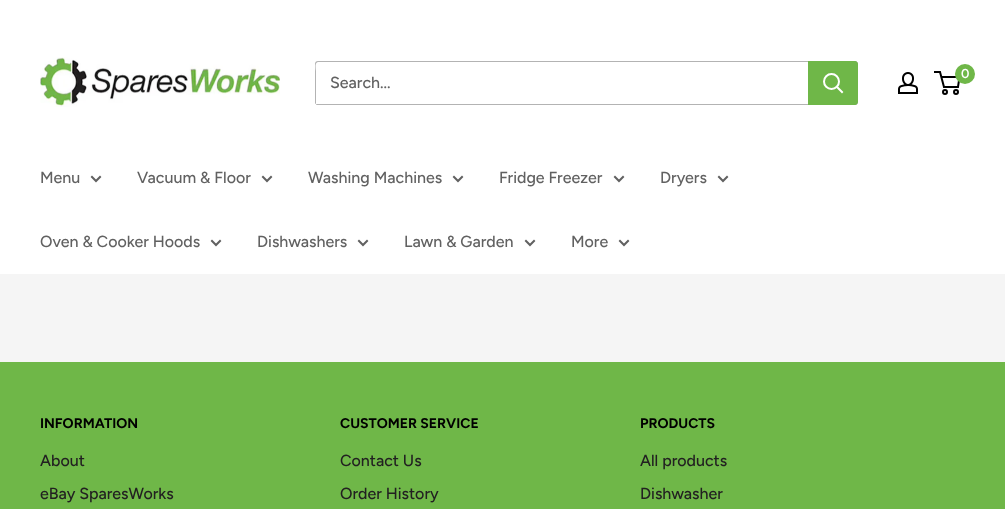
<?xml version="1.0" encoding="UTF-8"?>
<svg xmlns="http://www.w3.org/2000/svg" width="1005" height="509">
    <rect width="100%" height="100%" fill="#F5F5F5"/>
    <rect x="0" y="0" width="1005" height="274" fill="#FFFFFF"/>
    <image x="40" y="57" width="240" height="50" href="img_01.png"/>
    <image x="898" y="72" width="20" height="22" href="img_02.png"/>
    <circle cx="945" cy="92" r="2" fill="none" stroke="#000000" stroke-width="2"/>
    <circle cx="956" cy="92" r="2" fill="none" stroke="#000000" stroke-width="2"/>
    <path d="M 941.5 77 H 959.5 L 958 87 H 944 L 940 72 H 934" fill="none" stroke="#000000" stroke-width="2"/>
    <circle cx="965" cy="74" r="10" fill="#6FB748"/>
    <text x="961" y="78" font-family="Figtree" font-size="13" font-weight="600" fill="#FFFFFF">0</text>
    <path d="M 316 104 C 316 105 317 105 318 105 H 855 C 857 105 858 104 858 102 V 64 C 858 63 858 62 857 62 V 95 C 857 97 859 104 854 104 Z" fill="#B3B3B3"/>
    <path d="M 319 62 H 857 C 857 61 856 61 855 61 H 318 C 316 61 315 62 315 64 V 102 C 315 103 315 104 316 104 V 71 C 316 69 314 62 319 62 Z" fill="#B3B3B3"/>
    <text x="330" y="88" font-family="Figtree" font-size="16" font-weight="500" fill="#616161">Search...</text>
    <path d="M 808 61 H 855 C 856.5 61 858 62.5 858 64 V 102 C 858 103.5 856.5 105 855 105 H 808 Z" fill="#6FB748"/>
    <path d="M 842 92 L 837 87" fill="none" stroke="#FFFFFF" stroke-width="2" stroke-linecap="square"/>
    <circle cx="831.5" cy="81.5" r="7.5" fill="none" stroke="#FFFFFF" stroke-width="2"/>
    <text x="40" y="183" font-family="Figtree" font-size="16" font-weight="500" fill="#616161">Menu</text>
    <path d="M 100 177 L 96 181 L 92 177" fill="none" stroke="#616161" stroke-width="2" stroke-linecap="square"/>
    <text x="137" y="183" font-family="Figtree" font-size="16" font-weight="500" fill="#616161">Vacuum &amp; Floor</text>
    <path d="M 271 177 L 267 181 L 263 177" fill="none" stroke="#616161" stroke-width="2" stroke-linecap="square"/>
    <text x="308" y="183" font-family="Figtree" font-size="16" font-weight="500" fill="#616161">Washing Machines</text>
    <path d="M 462 177 L 458 181 L 454 177" fill="none" stroke="#616161" stroke-width="2" stroke-linecap="square"/>
    <text x="499" y="183" font-family="Figtree" font-size="16" font-weight="500" fill="#616161">Fridge Freezer</text>
    <path d="M 623 177 L 619 181 L 615 177" fill="none" stroke="#616161" stroke-width="2" stroke-linecap="square"/>
    <text x="660" y="183" font-family="Figtree" font-size="16" font-weight="500" fill="#616161">Dryers</text>
    <path d="M 727 177 L 723 181 L 719 177" fill="none" stroke="#616161" stroke-width="2" stroke-linecap="square"/>
    <text x="40" y="247" font-family="Figtree" font-size="16" font-weight="500" fill="#616161">Oven &amp; Cooker Hoods</text>
    <path d="M 220 241 L 216 245 L 212 241" fill="none" stroke="#616161" stroke-width="2" stroke-linecap="square"/>
    <text x="257" y="247" font-family="Figtree" font-size="16" font-weight="500" fill="#616161">Dishwashers</text>
    <path d="M 367 241 L 363 245 L 359 241" fill="none" stroke="#616161" stroke-width="2" stroke-linecap="square"/>
    <text x="404" y="247" font-family="Figtree" font-size="16" font-weight="500" fill="#616161">Lawn &amp; Garden</text>
    <path d="M 534 241 L 530 245 L 526 241" fill="none" stroke="#616161" stroke-width="2" stroke-linecap="square"/>
    <text x="571" y="247" font-family="Figtree" font-size="16" font-weight="500" fill="#616161">More</text>
    <path d="M 628 241 L 624 245 L 620 241" fill="none" stroke="#616161" stroke-width="2" stroke-linecap="square"/>
    <rect x="0" y="362" width="1005" height="147" fill="#6FB748"/>
    <text x="40" y="428" font-family="Figtree" font-size="14" font-weight="700" fill="#000000">INFORMATION</text>
    <text x="40" y="466" font-family="Figtree" font-size="16" font-weight="500" fill="#222021">About</text>
    <text x="40" y="499" font-family="Figtree" font-size="16" font-weight="500" fill="#222021">eBay SparesWorks</text>
    <text x="340" y="428" font-family="Figtree" font-size="14" font-weight="700" fill="#000000">CUSTOMER SERVICE</text>
    <text x="340" y="466" font-family="Figtree" font-size="16" font-weight="500" fill="#222021">Contact Us</text>
    <text x="340" y="499" font-family="Figtree" font-size="16" font-weight="500" fill="#222021">Order History</text>
    <text x="640" y="428" font-family="Figtree" font-size="14" font-weight="700" fill="#000000">PRODUCTS</text>
    <text x="640" y="466" font-family="Figtree" font-size="16" font-weight="500" fill="#222021">All products</text>
    <text x="640" y="499" font-family="Figtree" font-size="16" font-weight="500" fill="#222021">Dishwasher</text>
</svg>
